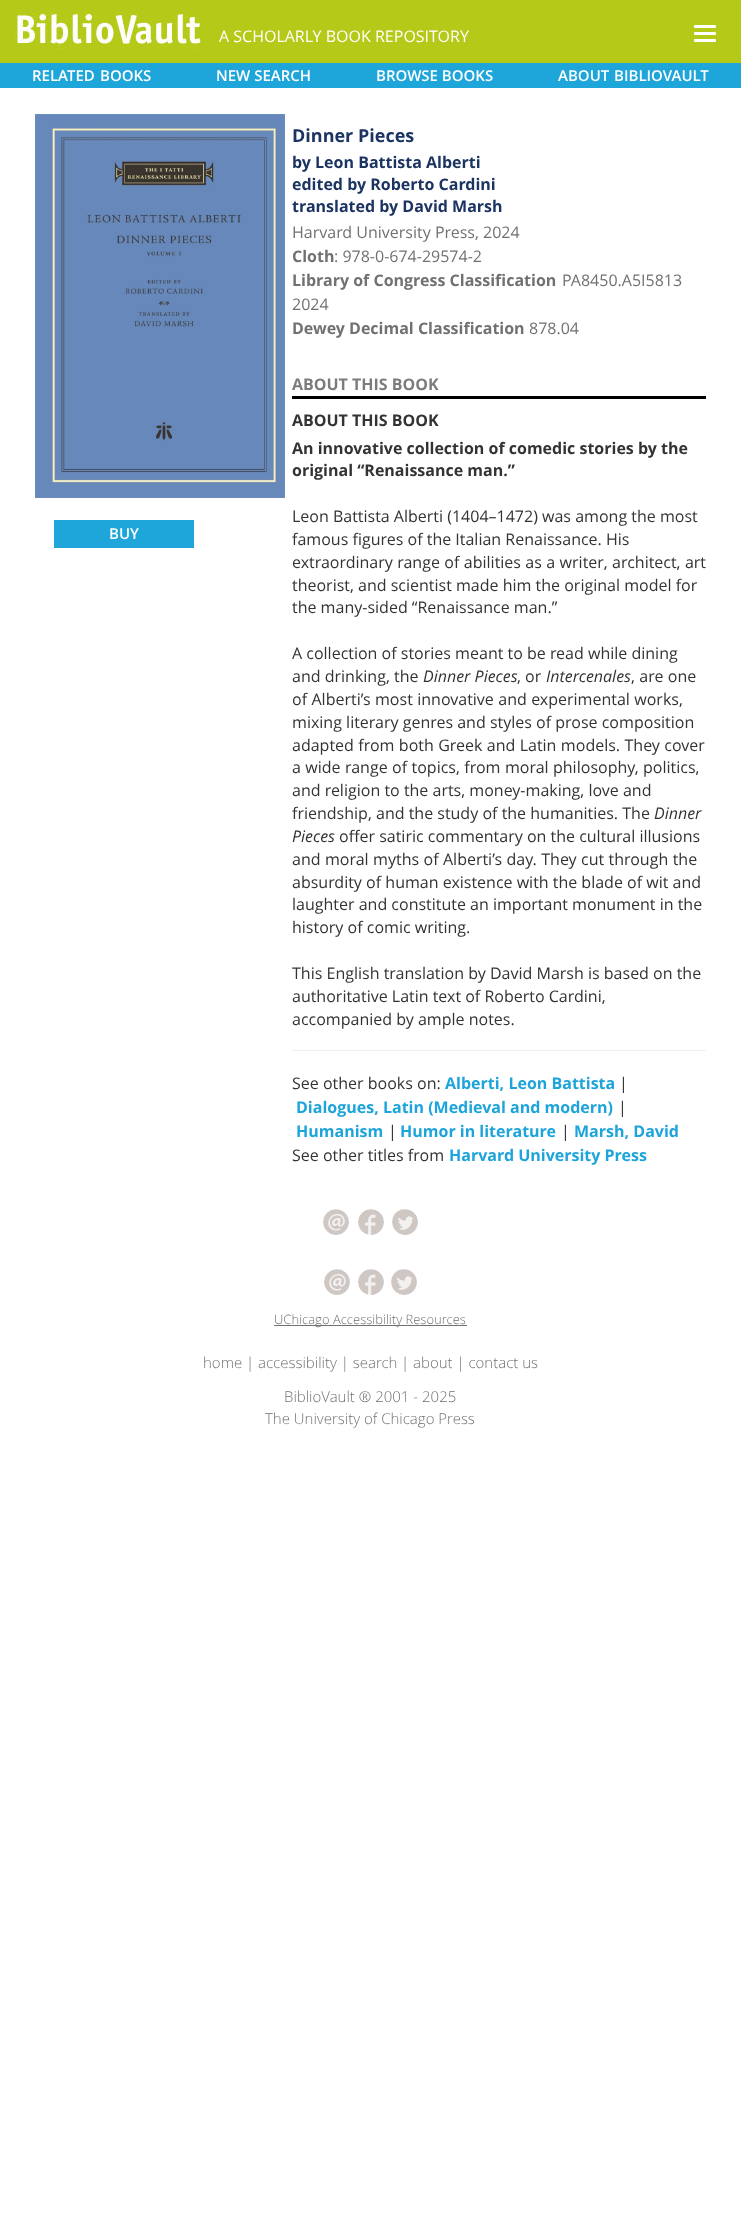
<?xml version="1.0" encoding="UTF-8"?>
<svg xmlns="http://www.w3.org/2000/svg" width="741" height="2213">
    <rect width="100%" height="100%" fill="#FFFFFF"/>
    <rect x="0" y="0" width="741" height="63" fill="#B5C918"/>
    <image x="15" y="11" width="188" height="39" href="img_01.png"/>
    <text x="219" y="42" font-family="Open Sans" font-size="16" fill="#FFFFFF">A SCHOLARLY BOOK REPOSITORY</text>
    <rect x="694" y="25" width="22" height="3" rx="1" fill="#FFFFFF"/>
    <rect x="694" y="32" width="22" height="3" rx="1" fill="#FFFFFF"/>
    <rect x="694" y="39" width="22" height="3" rx="1" fill="#FFFFFF"/>
    <rect x="0" y="63" width="741" height="25" fill="#1EA6DB"/>
    <text x="32" y="81" font-family="Open Sans" font-size="15" font-weight="600" fill="#FFFFFF">RELATED</text>
    <text x="100" y="81" font-family="Open Sans" font-size="15" font-weight="600" fill="#FFFFFF">BOOKS</text>
    <text x="216" y="81" font-family="Open Sans" font-size="15" font-weight="600" fill="#FFFFFF">NEW SEARCH</text>
    <text x="376" y="81" font-family="Open Sans" font-size="15" font-weight="600" fill="#FFFFFF">BROWSE BOOKS</text>
    <text x="558" y="81" font-family="Open Sans" font-size="15" font-weight="600" fill="#FFFFFF">ABOUT</text>
    <text x="614" y="81" font-family="Open Sans" font-size="15" font-weight="600" fill="#FFFFFF">BIBLIOVAULT</text>
    <image x="35" y="114" width="250" height="384" href="img_02.png"/>
    <rect x="54" y="520" width="140" height="28" fill="#1EA6DB"/>
    <text x="109" y="539" font-family="Open Sans" font-size="15" font-weight="600" fill="#FFFFFF">BUY</text>
    <text x="292" y="142" font-family="Open Sans" font-size="18" font-weight="700" fill="#1C3462">Dinner Pieces</text>
    <text font-family="Open Sans" font-size="16" font-weight="700" fill="#1C3462">
        <tspan x="292" y="168">by Leon Battista Alberti</tspan>
        <tspan x="292" y="190">edited by Roberto Cardini</tspan>
        <tspan x="292" y="212">translated by David Marsh</tspan>
    </text>
    <text x="292" y="238" font-family="Open Sans" font-size="16" fill="#717171">Harvard University Press, 2024</text>
    <text x="292" y="262" font-family="Open Sans" font-size="16" font-weight="700" fill="#717171">Cloth</text>
    <text x="334" y="262" font-family="Open Sans" font-size="16" fill="#717171">: 978-0-674-29574-2</text>
    <text x="292" y="286" font-family="Open Sans" font-size="16" font-weight="700" fill="#717171">Library of Congress Classification</text>
    <text x="562" y="286" font-family="Open Sans" font-size="16" fill="#717171">PA8450.A5I5813</text>
    <text x="292" y="310" font-family="Open Sans" font-size="16" fill="#717171">2024</text>
    <text x="292" y="334" font-family="Open Sans" font-size="16" font-weight="700" fill="#717171">Dewey Decimal Classification</text>
    <text x="529" y="334" font-family="Open Sans" font-size="16" fill="#717171">878.04</text>
    <text x="292" y="390" font-family="Open Sans" font-size="16" font-weight="700" fill="#7C7C7C">ABOUT THIS BOOK</text>
    <rect x="292" y="396" width="414" height="3" fill="#000000"/>
    <text font-family="Open Sans" font-size="16" font-weight="700" fill="#333333">
        <tspan x="292" y="426">ABOUT THIS BOOK</tspan>
        <tspan x="292" y="454">An innovative collection of comedic stories by the</tspan>
        <tspan x="292" y="476">original “Renaissance man.”</tspan>
    </text>
    <text font-family="Open Sans" font-size="16" fill="#333333">
        <tspan x="292" y="522">Leon Battista Alberti (1404–1472) was among the most</tspan>
        <tspan x="292" y="545">famous figures of the Italian Renaissance. His</tspan>
        <tspan x="292" y="568" word-spacing="0.25">extraordinary range of abilities as a writer, architect, art</tspan>
        <tspan x="292" y="591">theorist, and scientist made him the original model for</tspan>
        <tspan x="292" y="613">the many-sided “Renaissance man.”</tspan>
    </text>
    <text font-family="Open Sans" font-size="16" fill="#333333">
        <tspan x="292" y="659">A collection of stories meant to be read while dining</tspan>
        <tspan x="292" y="682">and drinking, the</tspan>
    </text>
    <text x="423" y="682" font-family="Open Sans" font-size="16" font-style="italic" fill="#333333">Dinner Pieces</text>
    <text x="517" y="682" font-family="Open Sans" font-size="16" fill="#333333">, or</text>
    <text x="546" y="682" font-family="Open Sans" font-size="16" font-style="italic" fill="#333333">Intercenales</text>
    <text x="631" y="682" word-spacing="0.25" font-family="Open Sans" font-size="16" fill="#333333">, are one</text>
    <text font-family="Open Sans" font-size="16" fill="#333333">
        <tspan x="292" y="705" word-spacing="0.25">of Alberti’s most innovative and experimental works,</tspan>
        <tspan x="292" y="728">mixing literary genres and styles of prose composition</tspan>
        <tspan x="292" y="751" word-spacing="0.25">adapted from both Greek and Latin models. They cover</tspan>
        <tspan x="292" y="773" word-spacing="0.25">a wide range of topics, from moral philosophy, politics,</tspan>
        <tspan x="292" y="796">and religion to the arts, money-making, love and</tspan>
        <tspan x="292" y="819">friendship, and the study of the humanities. The</tspan>
    </text>
    <text x="654" y="819" font-family="Open Sans" font-size="16" font-style="italic" fill="#333333">Dinner</text>
    <text x="292" y="842" font-family="Open Sans" font-size="16" font-style="italic" fill="#333333">Pieces</text>
    <text x="339" y="842" font-family="Open Sans" font-size="16" fill="#333333">offer satiric commentary on the cultural illusions</text>
    <text font-family="Open Sans" font-size="16" fill="#333333">
        <tspan x="292" y="865" word-spacing="0.25">and moral myths of Alberti’s day. They cut through the</tspan>
        <tspan x="292" y="888">absurdity of human existence with the blade of wit and</tspan>
        <tspan x="292" y="910">laughter and constitute an important monument in the</tspan>
        <tspan x="292" y="933">history of comic writing.</tspan>
    </text>
    <text font-family="Open Sans" font-size="16" fill="#333333">
        <tspan x="292" y="979">This English translation by David Marsh is based on the</tspan>
        <tspan x="292" y="1002">authoritative Latin text of Roberto Cardini,</tspan>
        <tspan x="292" y="1025">accompanied by ample notes.</tspan>
    </text>
    <rect x="292" y="1050" width="414" height="1" fill="#EEEEEE"/>
    <text x="292" y="1089" font-family="Open Sans" font-size="16" fill="#333333">See other books on:</text>
    <text x="445" y="1089" font-family="Open Sans" font-size="16" font-weight="700" fill="#1CA4DB">Alberti, Leon Battista</text>
    <text x="619" y="1089" font-family="Open Sans" font-size="16" fill="#333333">|</text>
    <text x="296" y="1113" font-family="Open Sans" font-size="16" font-weight="700" fill="#1CA4DB">Dialogues, Latin (Medieval and modern)</text>
    <text x="618" y="1113" font-family="Open Sans" font-size="16" fill="#333333">|</text>
    <text x="296" y="1137" font-family="Open Sans" font-size="16" font-weight="700" fill="#1CA4DB">Humanism</text>
    <text x="388" y="1137" font-family="Open Sans" font-size="16" fill="#333333">|</text>
    <text x="400" y="1137" font-family="Open Sans" font-size="16" font-weight="700" fill="#1CA4DB">Humor in literature</text>
    <text x="561" y="1137" font-family="Open Sans" font-size="16" fill="#333333">|</text>
    <text x="574" y="1137" font-family="Open Sans" font-size="16" font-weight="700" fill="#1CA4DB">Marsh, David</text>
    <text x="292" y="1161" font-family="Open Sans" font-size="16" fill="#333333">See other titles from</text>
    <text x="449" y="1161" font-family="Open Sans" font-size="16" font-weight="700" fill="#1CA4DB">Harvard University Press</text>
    <image x="323" y="1209" width="26" height="26" href="img_03.png"/>
    <image x="358" y="1209" width="26" height="26" href="img_04.png"/>
    <image x="392" y="1209" width="26" height="26" href="img_05.png"/>
    <image x="324" y="1269" width="26" height="26" href="img_03.png"/>
    <image x="358" y="1269" width="26" height="26" href="img_04.png"/>
    <image x="391" y="1269" width="26" height="26" href="img_05.png"/>
    <rect x="274" y="1325" width="193" height="1" fill="#717171"/>
    <text x="274" y="1324" font-family="Open Sans" font-size="13" font-weight="300" fill="#717171">UChicago Accessibility Resources</text>
    <text x="203" y="1368" font-family="Open Sans" font-size="15" font-weight="300" fill="#717171">home | accessibility | search</text>
    <text x="401" y="1368" font-family="Open Sans" font-size="15" font-weight="300" fill="#717171">| about | contact us</text>
    <text x="284" y="1402" font-family="Open Sans" font-size="15" font-weight="300" fill="#717171">BiblioVault ® 2001 - 2025</text>
    <text x="265" y="1424" font-family="Open Sans" font-size="15" font-weight="300" fill="#717171">The University of Chicago Press</text>
</svg>
